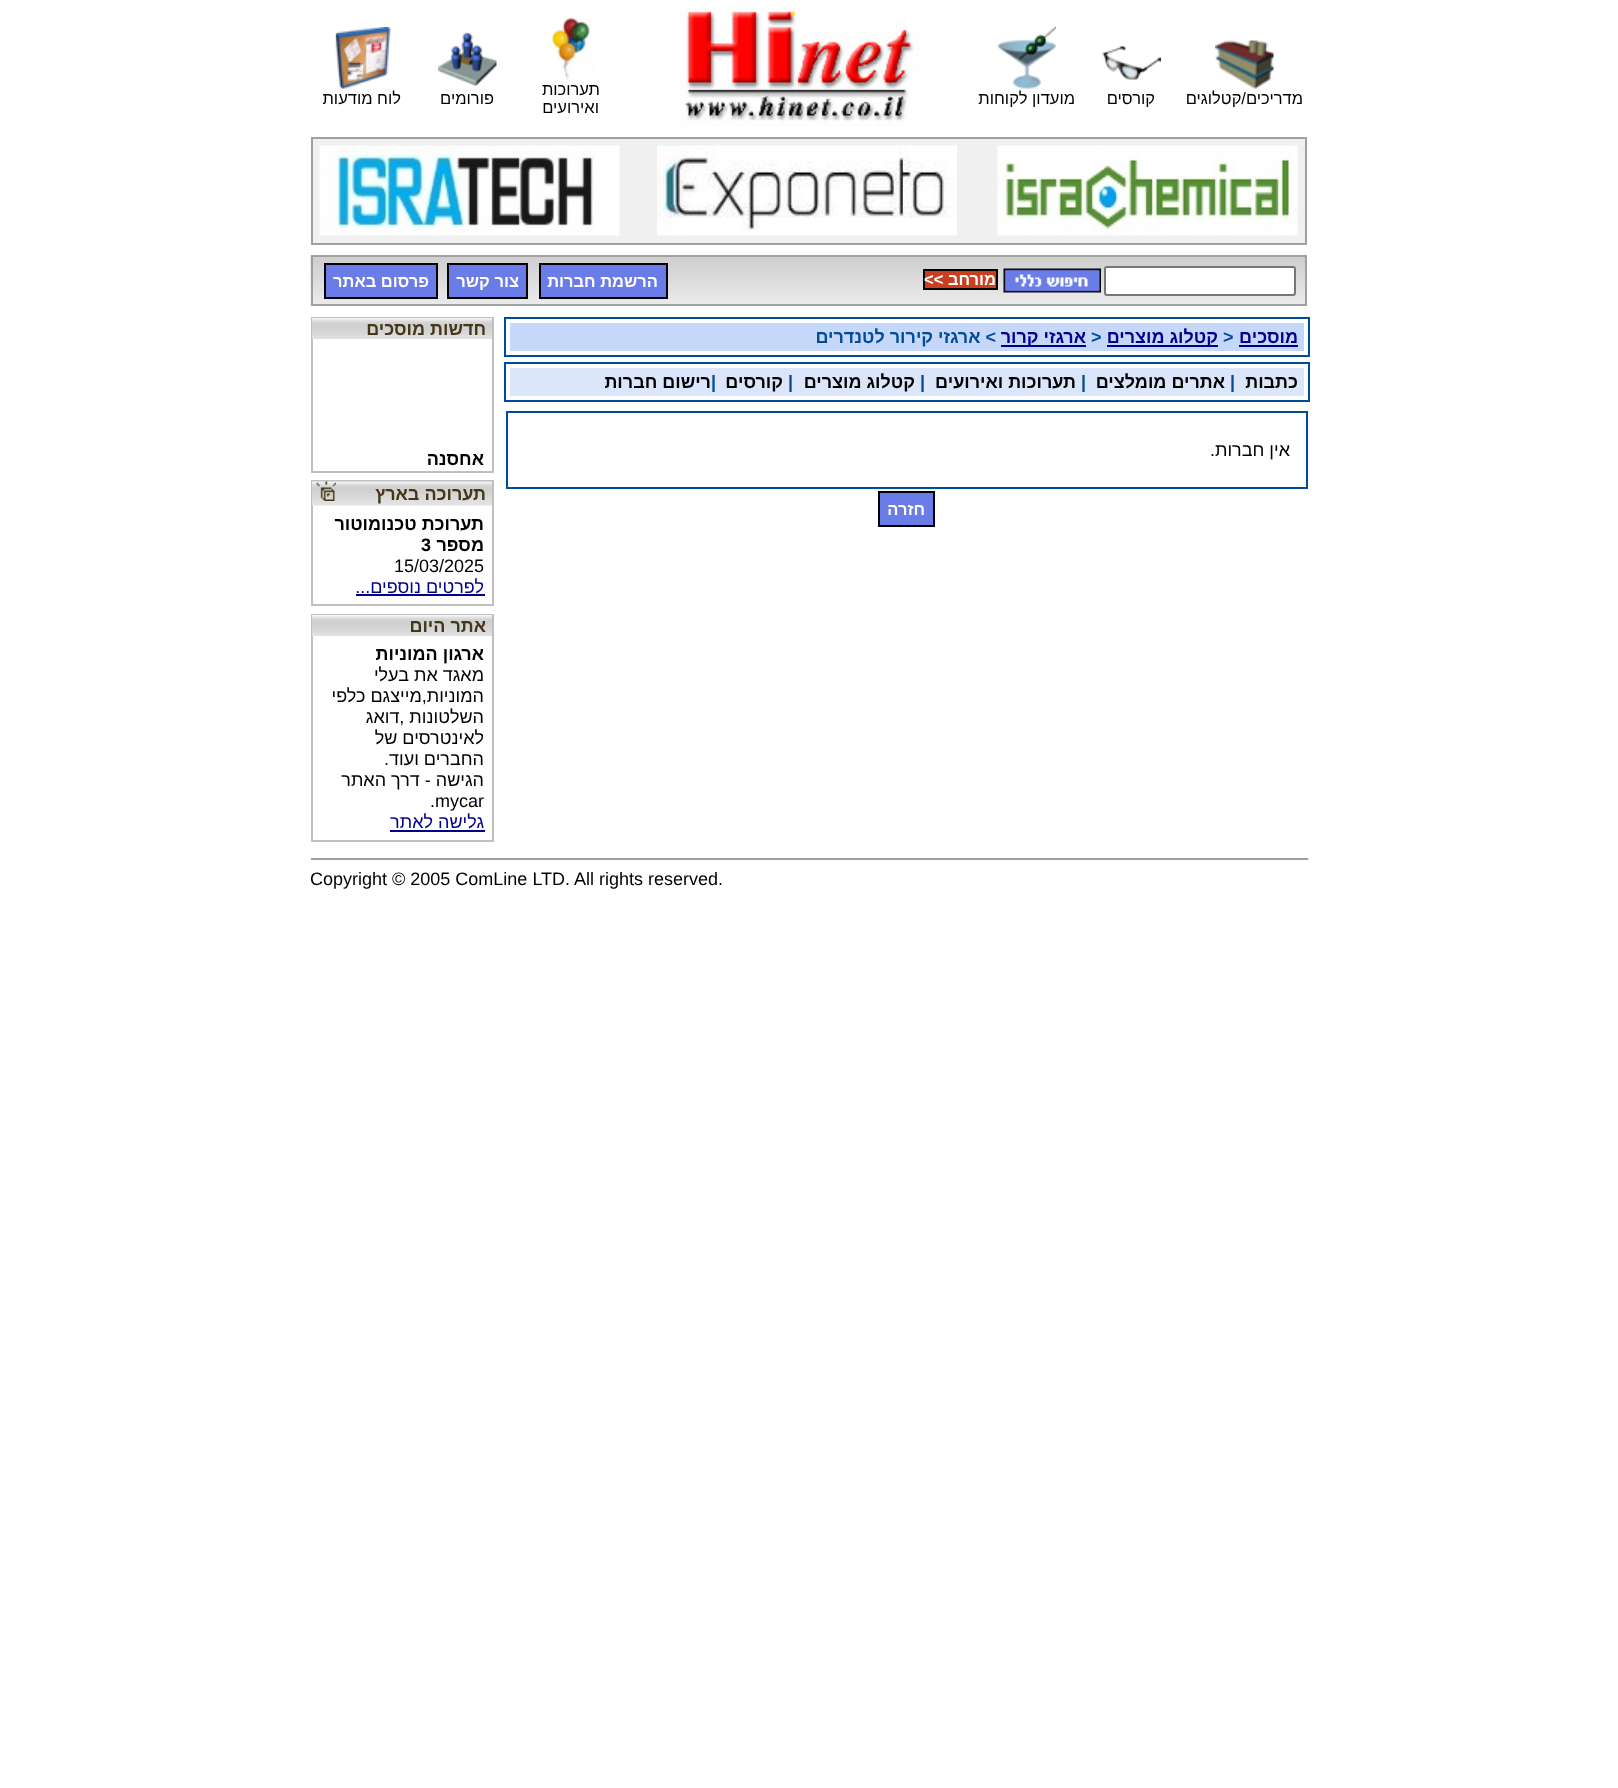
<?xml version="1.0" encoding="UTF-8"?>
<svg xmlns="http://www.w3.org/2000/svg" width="1618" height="1788">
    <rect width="100%" height="100%" fill="#FFFFFF"/>
    <image x="1215" y="40" width="59" height="49" href="img_01.png"/>
    <text x="1303" y="104" font-family="Liberation Sans" font-size="16.5" direction="rtl" fill="#000000">מדריכים/קטלוגים</text>
    <image x="1102" y="46" width="59" height="34" href="img_02.png"/>
    <text x="1155" y="104" font-family="Liberation Sans" font-size="16.5" direction="rtl" fill="#000000">קורסים</text>
    <image x="997" y="27" width="59" height="62" href="img_03.png"/>
    <text x="1075" y="104" font-family="Liberation Sans" font-size="16.5" direction="rtl" fill="#000000">מועדון לקוחות</text>
    <image x="679" y="7" width="241" height="119" href="img_04.png"/>
    <image x="549" y="18" width="45" height="62" href="img_05.png"/>
    <text x="600" y="95" font-family="Liberation Sans" font-size="16.5" direction="rtl" fill="#000000">תערוכות</text>
    <text x="599" y="113" font-family="Liberation Sans" font-size="16.5" direction="rtl" fill="#000000">ואירועים</text>
    <image x="438" y="32" width="59" height="54" href="img_06.png"/>
    <text x="494" y="104" font-family="Liberation Sans" font-size="16.5" direction="rtl" fill="#000000">פורומים</text>
    <image x="335" y="27" width="56" height="62" href="img_07.png"/>
    <text x="401" y="104" font-family="Liberation Sans" font-size="16.5" direction="rtl" fill="#000000">לוח מודעות</text>
    <rect x="312" y="138" width="994" height="106" fill="#F0F0F0" stroke="#A0A0A0" stroke-width="2"/>
    <image x="997" y="145" width="301" height="91" href="img_08.png"/>
    <image x="657" y="145" width="300" height="91" href="img_09.png"/>
    <image x="319" y="145" width="301" height="91" href="img_10.png"/>
    <image x="310" y="255" width="995" height="51" href="img_11.png"/>
    <rect x="312" y="256" width="994" height="49" fill="none" stroke="#A0A0A0" stroke-width="2"/>
    <rect x="1105" y="267" width="190" height="28" rx="2" fill="#FFFFFF" stroke="#767676" stroke-width="2"/>
    <image x="1003" y="268" width="98" height="25" href="img_12.png"/>
    <rect x="925" y="271" width="71" height="17" fill="#CA3F1F"/>
    <text x="996" y="285" font-family="Liberation Sans" font-size="16.5" font-weight="700" direction="rtl" fill="#FFFFFF">מורחב</text>
    <rect x="923" y="269" width="75" height="2" fill="#000000"/>
    <rect x="996" y="269" width="2" height="21" fill="#000000"/>
    <rect x="948" y="288" width="50" height="2" fill="#000000"/>
    <rect x="923" y="288" width="25" height="2" fill="#000000"/>
    <rect x="923" y="269" width="2" height="21" fill="#000000"/>
    <text x="924" y="285" font-family="Liberation Sans" font-size="16.5" font-weight="700" fill="#FFFFFF">&lt;&lt;</text>
    <rect x="540" y="264" width="127" height="34" fill="#6A7CE8" stroke="#000000" stroke-width="2"/>
    <text x="658" y="287" font-family="Liberation Sans" font-size="16.5" font-weight="700" direction="rtl" fill="#FFFFFF">הרשמת חברות</text>
    <rect x="448" y="264" width="79" height="34" fill="#6A7CE8" stroke="#000000" stroke-width="2"/>
    <text x="519" y="287" font-family="Liberation Sans" font-size="16.5" font-weight="700" direction="rtl" fill="#FFFFFF">צור קשר</text>
    <rect x="325" y="264" width="112" height="34" fill="#6A7CE8" stroke="#000000" stroke-width="2"/>
    <text x="429" y="287" font-family="Liberation Sans" font-size="16.5" font-weight="700" direction="rtl" fill="#FFFFFF">פרסום באתר</text>
    <rect x="505" y="318" width="804" height="38" fill="none" stroke="#004C99" stroke-width="2"/>
    <rect x="510" y="323" width="794" height="28" fill="#C6D8FA"/>
    <text x="1298" y="343" font-family="Liberation Sans" font-size="18" font-weight="700" direction="rtl" fill="#00008C">מוסכים</text>
    <rect x="1239" y="345" width="59" height="2" fill="#00008C"/>
    <text x="1223" y="343" font-family="Liberation Sans" font-size="18" font-weight="700" fill="#004C99">&gt;</text>
    <rect x="1107" y="345" width="111" height="2" fill="#00008C"/>
    <text x="1218" y="343" font-family="Liberation Sans" font-size="18" font-weight="700" direction="rtl" fill="#00008C">קטלוג מוצרים</text>
    <text x="1091" y="343" font-family="Liberation Sans" font-size="18" font-weight="700" fill="#004C99">&gt;</text>
    <rect x="1001" y="345" width="85" height="2" fill="#00008C"/>
    <text x="1086" y="343" font-family="Liberation Sans" font-size="18" font-weight="700" direction="rtl" fill="#00008C">ארגזי קרור</text>
    <text x="996" y="343" font-family="Liberation Sans" font-size="18" font-weight="700" direction="rtl" fill="#004C99">&gt; ארגזי קירור לטנדרים</text>
    <rect x="505" y="363" width="804" height="38" fill="none" stroke="#004C99" stroke-width="2"/>
    <rect x="510" y="368" width="794" height="28" fill="#DBE6FB"/>
    <text x="1298" y="388" font-family="Liberation Sans" font-size="18" font-weight="700" direction="rtl" fill="#000000">כתבות</text>
    <text x="1230" y="388" font-family="Liberation Sans" font-size="18" font-weight="700" fill="#004C99">|</text>
    <text x="1225" y="388" font-family="Liberation Sans" font-size="18" font-weight="700" direction="rtl" fill="#000000">אתרים מומלצים</text>
    <text x="1081" y="388" font-family="Liberation Sans" font-size="18" font-weight="700" fill="#004C99">|</text>
    <text x="1076" y="388" font-family="Liberation Sans" font-size="18" font-weight="700" direction="rtl" fill="#000000">תערוכות ואירועים</text>
    <text x="920" y="388" font-family="Liberation Sans" font-size="18" font-weight="700" fill="#004C99">|</text>
    <text x="915" y="388" font-family="Liberation Sans" font-size="18" font-weight="700" direction="rtl" fill="#000000">קטלוג מוצרים</text>
    <text x="788" y="388" font-family="Liberation Sans" font-size="18" font-weight="700" fill="#004C99">|</text>
    <text x="783" y="388" font-family="Liberation Sans" font-size="18" font-weight="700" direction="rtl" fill="#000000">קורסים</text>
    <text x="711" y="388" font-family="Liberation Sans" font-size="18" font-weight="700" fill="#004C99">|</text>
    <text x="711" y="388" font-family="Liberation Sans" font-size="18" font-weight="700" direction="rtl" fill="#000000">רישום חברות</text>
    <rect x="507" y="412" width="800" height="76" fill="none" stroke="#004C99" stroke-width="2"/>
    <text x="1290" y="456" font-family="Liberation Sans" font-size="18" direction="rtl" fill="#000000">אין חברות.</text>
    <rect x="879" y="492" width="55" height="34" fill="#6A7CE8" stroke="#000000" stroke-width="2"/>
    <text x="925" y="515" font-family="Liberation Sans" font-size="16.5" font-weight="700" direction="rtl" fill="#FFFFFF">חזרה</text>
    <rect x="312" y="318" width="181" height="154" fill="none" stroke="#C0C0C0" stroke-width="2"/>
    <image x="312" y="318" width="180" height="21" href="img_13.png"/>
    <text x="486" y="335" font-family="Liberation Sans" font-size="18" font-weight="700" direction="rtl" fill="#433717">חדשות מוסכים</text>
    <text x="484" y="465" font-family="Liberation Sans" font-size="18" font-weight="700" direction="rtl" fill="#000000">אחסנה</text>
    <rect x="312" y="481" width="181" height="124" fill="none" stroke="#C0C0C0" stroke-width="2"/>
    <image x="342" y="481" width="150" height="25" href="img_14.png"/>
    <text x="486" y="500" font-family="Liberation Sans" font-size="18" font-weight="700" direction="rtl" fill="#433717">תערוכה בארץ</text>
    <image x="312" y="481" width="30" height="25" href="img_15.png"/>
    <image x="316" y="481" width="20" height="20" href="img_16.png"/>
    <text font-family="Liberation Sans" font-size="18" font-weight="700" direction="rtl" fill="#000000">
        <tspan x="484" y="530">תערוכת טכנומוטור</tspan>
        <tspan x="484" y="551">מספר</tspan>
    </text>
    <text x="421" y="551" font-family="Liberation Sans" font-size="18" font-weight="700" fill="#000000">3</text>
    <text x="394" y="572" font-family="Liberation Sans" font-size="18" fill="#000000">15/03/2025</text>
    <text x="484" y="593" font-family="Liberation Sans" font-size="18" direction="rtl" fill="#00008C">לפרטים נוספים...</text>
    <rect x="356" y="594" width="129" height="2" fill="#00008C"/>
    <rect x="312" y="615" width="181" height="226" fill="none" stroke="#C0C0C0" stroke-width="2"/>
    <image x="312" y="615" width="180" height="21" href="img_13.png"/>
    <text x="486" y="632" font-family="Liberation Sans" font-size="18" font-weight="700" direction="rtl" fill="#433717">אתר היום</text>
    <text x="484" y="660" font-family="Liberation Sans" font-size="18" font-weight="700" direction="rtl" fill="#000000">ארגון המוניות</text>
    <text font-family="Liberation Sans" font-size="18" direction="rtl" fill="#000000">
        <tspan x="484" y="681">מאגד את בעלי</tspan>
        <tspan x="484" y="702">המוניות,מייצגם כלפי</tspan>
        <tspan x="484" y="723">השלטונות ,דואג</tspan>
        <tspan x="484" y="744">לאינטרסים של</tspan>
        <tspan x="484" y="765">החברים ועוד.</tspan>
        <tspan x="484" y="786">הגישה - דרך האתר</tspan>
    </text>
    <text x="430" y="807" font-family="Liberation Sans" font-size="18" fill="#000000">.mycar</text>
    <text x="484" y="828" font-family="Liberation Sans" font-size="18" direction="rtl" fill="#00008C">גלישה לאתר</text>
    <rect x="390" y="830" width="95" height="2" fill="#00008C"/>
    <rect x="311" y="858" width="999" height="2" fill="#9F9F9F"/>
    <rect x="1308" y="858" width="2" height="2" fill="#EEEEEE"/>
    <text x="310" y="885" font-family="Liberation Sans" font-size="18" fill="#000000">Copyright © 2005 ComLine LTD. All rights reserved.</text>
</svg>
